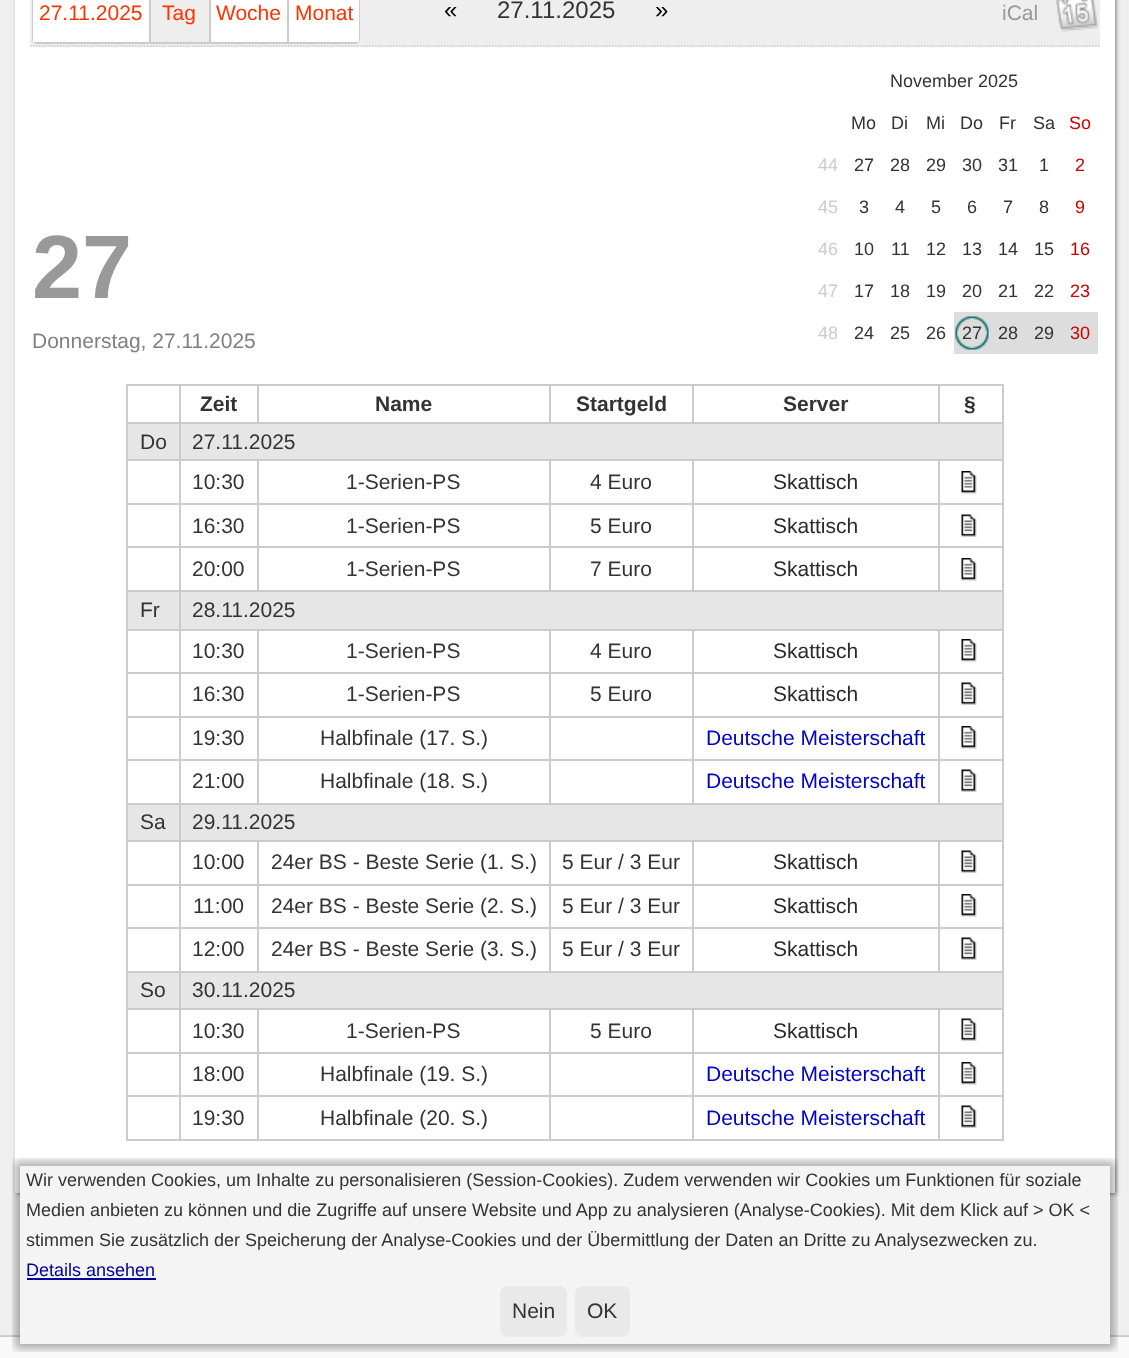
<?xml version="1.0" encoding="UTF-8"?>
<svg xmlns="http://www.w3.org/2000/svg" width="1129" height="1358">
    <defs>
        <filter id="blur1" x="-50%" y="-200%" width="200%" height="500%"><feGaussianBlur stdDeviation="2"/></filter>
        <clipPath id="clip1"><rect x="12" y="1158" width="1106" height="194"/></clipPath>
        <filter id="blur2" x="-50%" y="-200%" width="200%" height="500%"><feGaussianBlur stdDeviation="4.5"/></filter>
    </defs>
    <rect width="100%" height="100%" fill="#F9F9F9"/>
    <rect x="0" y="0" width="1129" height="1335" fill="#EFEFEF"/>
    <rect x="17" y="-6" width="1099" height="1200" fill="#000000" fill-opacity="0.5" filter="url(#blur1)"/>
    <rect x="15" y="0" width="1100" height="1193" fill="#FFFFFF"/>
    <rect x="30" y="0" width="1070" height="47" fill="#EEEEEE"/>
    <path d="M 30 46 H 1099.5" fill="none" stroke="#CCCCCC" stroke-width="1.5" stroke-dasharray="1.5 1.5"/>
    <rect x="33" y="-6" width="326" height="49" rx="4" fill="none" stroke="#CCCCCC" stroke-width="2"/>
    <rect x="33" y="0" width="116" height="42" fill="#FFFFFF"/>
    <text x="39" y="20" font-family="Liberation Sans" font-size="21" fill="#FF3300">27.11.2025</text>
    <rect x="149" y="0" width="2" height="42" fill="#CCCCCC"/>
    <text x="162" y="20" font-family="Liberation Sans" font-size="21" fill="#FF3300">Tag</text>
    <rect x="211" y="0" width="76" height="42" fill="#FFFFFF"/>
    <rect x="209" y="0" width="2" height="42" fill="#CCCCCC"/>
    <text x="216" y="20" font-family="Liberation Sans" font-size="21" fill="#FF3300">Woche</text>
    <rect x="289" y="0" width="70" height="42" fill="#FFFFFF"/>
    <rect x="287" y="0" width="2" height="42" fill="#CCCCCC"/>
    <text x="295" y="20" font-family="Liberation Sans" font-size="21" fill="#FF3300">Monat</text>
    <text x="444" y="18" font-family="Liberation Sans" font-size="24" fill="#000000">«</text>
    <text x="497" y="18" font-family="Liberation Sans" font-size="24" fill="#333333">27.11.2025</text>
    <text x="655" y="18" font-family="Liberation Sans" font-size="24" fill="#000000">»</text>
    <image x="1055" y="0" width="44" height="32" href="img_01.png"/>
    <text x="1002" y="20" font-family="Liberation Sans" font-size="21" fill="#999999">iCal</text>
    <text x="32" y="298" font-family="Liberation Sans" font-size="90" font-weight="700" fill="#999999">27</text>
    <text x="32" y="348" font-family="Liberation Sans" font-size="21" fill="#808080">Donnerstag, 27.11.2025</text>
    <text x="890" y="87" font-family="Liberation Sans" font-size="18" fill="#333333">November 2025</text>
    <text x="851" y="129" font-family="Liberation Sans" font-size="18" fill="#333333">Mo</text>
    <text x="891" y="129" font-family="Liberation Sans" font-size="18" fill="#333333">Di</text>
    <text x="926" y="129" font-family="Liberation Sans" font-size="18" fill="#333333">Mi</text>
    <text x="960" y="129" font-family="Liberation Sans" font-size="18" fill="#333333">Do</text>
    <text x="999" y="129" font-family="Liberation Sans" font-size="18" fill="#333333">Fr</text>
    <text x="1033" y="129" font-family="Liberation Sans" font-size="18" fill="#333333">Sa</text>
    <text x="1069" y="129" font-family="Liberation Sans" font-size="18" fill="#CC0000">So</text>
    <text x="818" y="171" font-family="Liberation Sans" font-size="18" fill="#CCCCCC">44</text>
    <text x="854" y="171" font-family="Liberation Sans" font-size="18" fill="#333333">27</text>
    <text x="890" y="171" font-family="Liberation Sans" font-size="18" fill="#333333">28</text>
    <text x="926" y="171" font-family="Liberation Sans" font-size="18" fill="#333333">29</text>
    <text x="962" y="171" font-family="Liberation Sans" font-size="18" fill="#333333">30</text>
    <text x="998" y="171" font-family="Liberation Sans" font-size="18" fill="#333333">31</text>
    <text x="1039" y="171" font-family="Liberation Sans" font-size="18" fill="#333333">1</text>
    <text x="1075" y="171" font-family="Liberation Sans" font-size="18" fill="#CC0000">2</text>
    <text x="818" y="213" font-family="Liberation Sans" font-size="18" fill="#CCCCCC">45</text>
    <text x="859" y="213" font-family="Liberation Sans" font-size="18" fill="#333333">3</text>
    <text x="895" y="213" font-family="Liberation Sans" font-size="18" fill="#333333">4</text>
    <text x="931" y="213" font-family="Liberation Sans" font-size="18" fill="#333333">5</text>
    <text x="967" y="213" font-family="Liberation Sans" font-size="18" fill="#333333">6</text>
    <text x="1003" y="213" font-family="Liberation Sans" font-size="18" fill="#333333">7</text>
    <text x="1039" y="213" font-family="Liberation Sans" font-size="18" fill="#333333">8</text>
    <text x="1075" y="213" font-family="Liberation Sans" font-size="18" fill="#CC0000">9</text>
    <text x="818" y="255" font-family="Liberation Sans" font-size="18" fill="#CCCCCC">46</text>
    <text x="854" y="255" font-family="Liberation Sans" font-size="18" fill="#333333">10</text>
    <text x="891" y="255" font-family="Liberation Sans" font-size="18" fill="#333333">11</text>
    <text x="926" y="255" font-family="Liberation Sans" font-size="18" fill="#333333">12</text>
    <text x="962" y="255" font-family="Liberation Sans" font-size="18" fill="#333333">13</text>
    <text x="998" y="255" font-family="Liberation Sans" font-size="18" fill="#333333">14</text>
    <text x="1034" y="255" font-family="Liberation Sans" font-size="18" fill="#333333">15</text>
    <text x="1070" y="255" font-family="Liberation Sans" font-size="18" fill="#CC0000">16</text>
    <text x="818" y="297" font-family="Liberation Sans" font-size="18" fill="#CCCCCC">47</text>
    <text x="854" y="297" font-family="Liberation Sans" font-size="18" fill="#333333">17</text>
    <text x="890" y="297" font-family="Liberation Sans" font-size="18" fill="#333333">18</text>
    <text x="926" y="297" font-family="Liberation Sans" font-size="18" fill="#333333">19</text>
    <text x="962" y="297" font-family="Liberation Sans" font-size="18" fill="#333333">20</text>
    <text x="998" y="297" font-family="Liberation Sans" font-size="18" fill="#333333">21</text>
    <text x="1034" y="297" font-family="Liberation Sans" font-size="18" fill="#333333">22</text>
    <text x="1070" y="297" font-family="Liberation Sans" font-size="18" fill="#CC0000">23</text>
    <text x="818" y="339" font-family="Liberation Sans" font-size="18" fill="#CCCCCC">48</text>
    <text x="854" y="339" font-family="Liberation Sans" font-size="18" fill="#333333">24</text>
    <text x="890" y="339" font-family="Liberation Sans" font-size="18" fill="#333333">25</text>
    <text x="926" y="339" font-family="Liberation Sans" font-size="18" fill="#333333">26</text>
    <rect x="954" y="312" width="144" height="42" fill="#DDDDDD"/>
    <image x="955" y="316" width="34" height="34" href="img_02.png"/>
    <text x="962" y="339" font-family="Liberation Sans" font-size="18" fill="#333333">27</text>
    <text x="998" y="339" font-family="Liberation Sans" font-size="18" fill="#333333">28</text>
    <text x="1034" y="339" font-family="Liberation Sans" font-size="18" fill="#333333">29</text>
    <text x="1070" y="339" font-family="Liberation Sans" font-size="18" fill="#CC0000">30</text>
    <rect x="938" y="384" width="66" height="2" fill="#CCCCCC"/>
    <rect x="179" y="422" width="825" height="2" fill="#CCCCCC"/>
    <rect x="938" y="384" width="2" height="39" fill="#CCCCCC"/>
    <rect x="692" y="384" width="247" height="2" fill="#CCCCCC"/>
    <rect x="692" y="384" width="2" height="39" fill="#CCCCCC"/>
    <rect x="549" y="384" width="144" height="2" fill="#CCCCCC"/>
    <rect x="549" y="384" width="2" height="39" fill="#CCCCCC"/>
    <rect x="257" y="384" width="294" height="2" fill="#CCCCCC"/>
    <rect x="257" y="384" width="2" height="39" fill="#CCCCCC"/>
    <rect x="179" y="384" width="79" height="2" fill="#CCCCCC"/>
    <rect x="128" y="424" width="874" height="35" fill="#E6E6E6"/>
    <rect x="938" y="459" width="66" height="2" fill="#CCCCCC"/>
    <rect x="938" y="503" width="66" height="2" fill="#CCCCCC"/>
    <rect x="938" y="546" width="66" height="2" fill="#CCCCCC"/>
    <rect x="179" y="590" width="825" height="2" fill="#CCCCCC"/>
    <rect x="938" y="546" width="2" height="45" fill="#CCCCCC"/>
    <rect x="692" y="546" width="247" height="2" fill="#CCCCCC"/>
    <rect x="938" y="503" width="2" height="45" fill="#CCCCCC"/>
    <rect x="692" y="503" width="247" height="2" fill="#CCCCCC"/>
    <rect x="938" y="459" width="2" height="45" fill="#CCCCCC"/>
    <rect x="692" y="459" width="247" height="2" fill="#CCCCCC"/>
    <rect x="692" y="546" width="2" height="45" fill="#CCCCCC"/>
    <rect x="549" y="546" width="144" height="2" fill="#CCCCCC"/>
    <rect x="692" y="503" width="2" height="45" fill="#CCCCCC"/>
    <rect x="549" y="503" width="144" height="2" fill="#CCCCCC"/>
    <rect x="692" y="459" width="2" height="45" fill="#CCCCCC"/>
    <rect x="549" y="459" width="144" height="2" fill="#CCCCCC"/>
    <rect x="549" y="546" width="2" height="45" fill="#CCCCCC"/>
    <rect x="257" y="546" width="294" height="2" fill="#CCCCCC"/>
    <rect x="549" y="503" width="2" height="45" fill="#CCCCCC"/>
    <rect x="257" y="503" width="294" height="2" fill="#CCCCCC"/>
    <rect x="549" y="459" width="2" height="45" fill="#CCCCCC"/>
    <rect x="257" y="459" width="294" height="2" fill="#CCCCCC"/>
    <rect x="257" y="546" width="2" height="45" fill="#CCCCCC"/>
    <rect x="179" y="546" width="79" height="2" fill="#CCCCCC"/>
    <rect x="257" y="503" width="2" height="45" fill="#CCCCCC"/>
    <rect x="179" y="503" width="79" height="2" fill="#CCCCCC"/>
    <rect x="257" y="459" width="2" height="45" fill="#CCCCCC"/>
    <rect x="179" y="459" width="79" height="2" fill="#CCCCCC"/>
    <rect x="128" y="592" width="874" height="37" fill="#E6E6E6"/>
    <rect x="938" y="629" width="66" height="2" fill="#CCCCCC"/>
    <rect x="938" y="672" width="66" height="2" fill="#CCCCCC"/>
    <rect x="938" y="716" width="66" height="2" fill="#CCCCCC"/>
    <rect x="938" y="759" width="66" height="2" fill="#CCCCCC"/>
    <rect x="179" y="803" width="825" height="2" fill="#CCCCCC"/>
    <rect x="938" y="759" width="2" height="45" fill="#CCCCCC"/>
    <rect x="692" y="759" width="247" height="2" fill="#CCCCCC"/>
    <rect x="938" y="716" width="2" height="45" fill="#CCCCCC"/>
    <rect x="692" y="716" width="247" height="2" fill="#CCCCCC"/>
    <rect x="938" y="672" width="2" height="45" fill="#CCCCCC"/>
    <rect x="692" y="672" width="247" height="2" fill="#CCCCCC"/>
    <rect x="938" y="629" width="2" height="45" fill="#CCCCCC"/>
    <rect x="692" y="629" width="247" height="2" fill="#CCCCCC"/>
    <rect x="692" y="759" width="2" height="45" fill="#CCCCCC"/>
    <rect x="549" y="759" width="144" height="2" fill="#CCCCCC"/>
    <rect x="692" y="716" width="2" height="45" fill="#CCCCCC"/>
    <rect x="549" y="716" width="144" height="2" fill="#CCCCCC"/>
    <rect x="692" y="672" width="2" height="45" fill="#CCCCCC"/>
    <rect x="549" y="672" width="144" height="2" fill="#CCCCCC"/>
    <rect x="692" y="629" width="2" height="45" fill="#CCCCCC"/>
    <rect x="549" y="629" width="144" height="2" fill="#CCCCCC"/>
    <rect x="549" y="759" width="2" height="45" fill="#CCCCCC"/>
    <rect x="257" y="759" width="294" height="2" fill="#CCCCCC"/>
    <rect x="549" y="716" width="2" height="45" fill="#CCCCCC"/>
    <rect x="257" y="716" width="294" height="2" fill="#CCCCCC"/>
    <rect x="549" y="672" width="2" height="45" fill="#CCCCCC"/>
    <rect x="257" y="672" width="294" height="2" fill="#CCCCCC"/>
    <rect x="549" y="629" width="2" height="45" fill="#CCCCCC"/>
    <rect x="257" y="629" width="294" height="2" fill="#CCCCCC"/>
    <rect x="257" y="759" width="2" height="45" fill="#CCCCCC"/>
    <rect x="179" y="759" width="79" height="2" fill="#CCCCCC"/>
    <rect x="257" y="716" width="2" height="45" fill="#CCCCCC"/>
    <rect x="179" y="716" width="79" height="2" fill="#CCCCCC"/>
    <rect x="257" y="672" width="2" height="45" fill="#CCCCCC"/>
    <rect x="179" y="672" width="79" height="2" fill="#CCCCCC"/>
    <rect x="257" y="629" width="2" height="45" fill="#CCCCCC"/>
    <rect x="179" y="629" width="79" height="2" fill="#CCCCCC"/>
    <rect x="128" y="805" width="874" height="35" fill="#E6E6E6"/>
    <rect x="938" y="840" width="66" height="2" fill="#CCCCCC"/>
    <rect x="938" y="884" width="66" height="2" fill="#CCCCCC"/>
    <rect x="938" y="927" width="66" height="2" fill="#CCCCCC"/>
    <rect x="179" y="971" width="825" height="2" fill="#CCCCCC"/>
    <rect x="938" y="927" width="2" height="45" fill="#CCCCCC"/>
    <rect x="692" y="927" width="247" height="2" fill="#CCCCCC"/>
    <rect x="938" y="884" width="2" height="45" fill="#CCCCCC"/>
    <rect x="692" y="884" width="247" height="2" fill="#CCCCCC"/>
    <rect x="938" y="840" width="2" height="45" fill="#CCCCCC"/>
    <rect x="692" y="840" width="247" height="2" fill="#CCCCCC"/>
    <rect x="692" y="927" width="2" height="45" fill="#CCCCCC"/>
    <rect x="549" y="927" width="144" height="2" fill="#CCCCCC"/>
    <rect x="692" y="884" width="2" height="45" fill="#CCCCCC"/>
    <rect x="549" y="884" width="144" height="2" fill="#CCCCCC"/>
    <rect x="692" y="840" width="2" height="45" fill="#CCCCCC"/>
    <rect x="549" y="840" width="144" height="2" fill="#CCCCCC"/>
    <rect x="549" y="927" width="2" height="45" fill="#CCCCCC"/>
    <rect x="257" y="927" width="294" height="2" fill="#CCCCCC"/>
    <rect x="549" y="884" width="2" height="45" fill="#CCCCCC"/>
    <rect x="257" y="884" width="294" height="2" fill="#CCCCCC"/>
    <rect x="549" y="840" width="2" height="45" fill="#CCCCCC"/>
    <rect x="257" y="840" width="294" height="2" fill="#CCCCCC"/>
    <rect x="257" y="927" width="2" height="45" fill="#CCCCCC"/>
    <rect x="179" y="927" width="79" height="2" fill="#CCCCCC"/>
    <rect x="257" y="884" width="2" height="45" fill="#CCCCCC"/>
    <rect x="179" y="884" width="79" height="2" fill="#CCCCCC"/>
    <rect x="257" y="840" width="2" height="45" fill="#CCCCCC"/>
    <rect x="179" y="840" width="79" height="2" fill="#CCCCCC"/>
    <rect x="128" y="973" width="874" height="35" fill="#E6E6E6"/>
    <rect x="938" y="1008" width="66" height="2" fill="#CCCCCC"/>
    <rect x="938" y="1052" width="66" height="2" fill="#CCCCCC"/>
    <rect x="938" y="1095" width="66" height="2" fill="#CCCCCC"/>
    <rect x="1002" y="1095" width="2" height="45" fill="#CCCCCC"/>
    <rect x="938" y="1139" width="66" height="2" fill="#CCCCCC"/>
    <rect x="938" y="1095" width="2" height="45" fill="#CCCCCC"/>
    <rect x="692" y="1095" width="247" height="2" fill="#CCCCCC"/>
    <rect x="938" y="1052" width="2" height="45" fill="#CCCCCC"/>
    <rect x="692" y="1052" width="247" height="2" fill="#CCCCCC"/>
    <rect x="938" y="1008" width="2" height="45" fill="#CCCCCC"/>
    <rect x="692" y="1008" width="247" height="2" fill="#CCCCCC"/>
    <rect x="692" y="1139" width="247" height="2" fill="#CCCCCC"/>
    <rect x="692" y="1095" width="2" height="45" fill="#CCCCCC"/>
    <rect x="549" y="1095" width="144" height="2" fill="#CCCCCC"/>
    <rect x="692" y="1052" width="2" height="45" fill="#CCCCCC"/>
    <rect x="549" y="1052" width="144" height="2" fill="#CCCCCC"/>
    <rect x="692" y="1008" width="2" height="45" fill="#CCCCCC"/>
    <rect x="549" y="1008" width="144" height="2" fill="#CCCCCC"/>
    <rect x="549" y="1139" width="144" height="2" fill="#CCCCCC"/>
    <rect x="549" y="1095" width="2" height="45" fill="#CCCCCC"/>
    <rect x="257" y="1095" width="294" height="2" fill="#CCCCCC"/>
    <rect x="549" y="1052" width="2" height="45" fill="#CCCCCC"/>
    <rect x="257" y="1052" width="294" height="2" fill="#CCCCCC"/>
    <rect x="549" y="1008" width="2" height="45" fill="#CCCCCC"/>
    <rect x="257" y="1008" width="294" height="2" fill="#CCCCCC"/>
    <rect x="257" y="1139" width="294" height="2" fill="#CCCCCC"/>
    <rect x="257" y="1095" width="2" height="45" fill="#CCCCCC"/>
    <rect x="179" y="1095" width="79" height="2" fill="#CCCCCC"/>
    <rect x="257" y="1052" width="2" height="45" fill="#CCCCCC"/>
    <rect x="179" y="1052" width="79" height="2" fill="#CCCCCC"/>
    <rect x="257" y="1008" width="2" height="45" fill="#CCCCCC"/>
    <rect x="179" y="1008" width="79" height="2" fill="#CCCCCC"/>
    <rect x="179" y="1139" width="79" height="2" fill="#CCCCCC"/>
    <rect x="179" y="1095" width="2" height="45" fill="#CCCCCC"/>
    <rect x="126" y="1095" width="54" height="2" fill="#CCCCCC"/>
    <rect x="179" y="1052" width="2" height="45" fill="#CCCCCC"/>
    <rect x="126" y="1052" width="54" height="2" fill="#CCCCCC"/>
    <rect x="179" y="1008" width="2" height="45" fill="#CCCCCC"/>
    <rect x="126" y="1008" width="54" height="2" fill="#CCCCCC"/>
    <rect x="179" y="971" width="2" height="39" fill="#CCCCCC"/>
    <rect x="126" y="971" width="54" height="2" fill="#CCCCCC"/>
    <rect x="179" y="927" width="2" height="45" fill="#CCCCCC"/>
    <rect x="126" y="927" width="54" height="2" fill="#CCCCCC"/>
    <rect x="179" y="884" width="2" height="45" fill="#CCCCCC"/>
    <rect x="126" y="884" width="54" height="2" fill="#CCCCCC"/>
    <rect x="179" y="840" width="2" height="45" fill="#CCCCCC"/>
    <rect x="126" y="840" width="54" height="2" fill="#CCCCCC"/>
    <rect x="179" y="803" width="2" height="39" fill="#CCCCCC"/>
    <rect x="126" y="803" width="54" height="2" fill="#CCCCCC"/>
    <rect x="179" y="759" width="2" height="45" fill="#CCCCCC"/>
    <rect x="126" y="759" width="54" height="2" fill="#CCCCCC"/>
    <rect x="179" y="716" width="2" height="45" fill="#CCCCCC"/>
    <rect x="126" y="716" width="54" height="2" fill="#CCCCCC"/>
    <rect x="179" y="672" width="2" height="45" fill="#CCCCCC"/>
    <rect x="126" y="672" width="54" height="2" fill="#CCCCCC"/>
    <rect x="179" y="629" width="2" height="45" fill="#CCCCCC"/>
    <rect x="126" y="629" width="54" height="2" fill="#CCCCCC"/>
    <rect x="179" y="590" width="2" height="40" fill="#CCCCCC"/>
    <rect x="126" y="590" width="54" height="2" fill="#CCCCCC"/>
    <rect x="179" y="546" width="2" height="45" fill="#CCCCCC"/>
    <rect x="126" y="546" width="54" height="2" fill="#CCCCCC"/>
    <rect x="179" y="503" width="2" height="45" fill="#CCCCCC"/>
    <rect x="126" y="503" width="54" height="2" fill="#CCCCCC"/>
    <rect x="179" y="459" width="2" height="45" fill="#CCCCCC"/>
    <rect x="126" y="459" width="54" height="2" fill="#CCCCCC"/>
    <rect x="179" y="422" width="2" height="39" fill="#CCCCCC"/>
    <rect x="126" y="422" width="54" height="2" fill="#CCCCCC"/>
    <rect x="179" y="384" width="2" height="39" fill="#CCCCCC"/>
    <rect x="126" y="384" width="54" height="2" fill="#CCCCCC"/>
    <rect x="126" y="1139" width="54" height="2" fill="#CCCCCC"/>
    <rect x="126" y="1095" width="2" height="45" fill="#CCCCCC"/>
    <rect x="126" y="1052" width="2" height="45" fill="#CCCCCC"/>
    <rect x="126" y="1008" width="2" height="45" fill="#CCCCCC"/>
    <rect x="126" y="971" width="2" height="39" fill="#CCCCCC"/>
    <rect x="126" y="927" width="2" height="45" fill="#CCCCCC"/>
    <rect x="126" y="884" width="2" height="45" fill="#CCCCCC"/>
    <rect x="126" y="840" width="2" height="45" fill="#CCCCCC"/>
    <rect x="126" y="803" width="2" height="39" fill="#CCCCCC"/>
    <rect x="126" y="759" width="2" height="45" fill="#CCCCCC"/>
    <rect x="126" y="716" width="2" height="45" fill="#CCCCCC"/>
    <rect x="126" y="672" width="2" height="45" fill="#CCCCCC"/>
    <rect x="126" y="629" width="2" height="45" fill="#CCCCCC"/>
    <rect x="126" y="590" width="2" height="40" fill="#CCCCCC"/>
    <rect x="126" y="546" width="2" height="45" fill="#CCCCCC"/>
    <rect x="126" y="503" width="2" height="45" fill="#CCCCCC"/>
    <rect x="126" y="459" width="2" height="45" fill="#CCCCCC"/>
    <rect x="126" y="422" width="2" height="39" fill="#CCCCCC"/>
    <rect x="126" y="384" width="2" height="39" fill="#CCCCCC"/>
    <text x="200" y="411" font-family="Liberation Sans" font-size="21" font-weight="700" fill="#333333">Zeit</text>
    <text x="375" y="411" font-family="Liberation Sans" font-size="21" font-weight="700" fill="#333333">Name</text>
    <text x="576" y="411" font-family="Liberation Sans" font-size="21" font-weight="700" fill="#333333">Startgeld</text>
    <text x="783" y="411" font-family="Liberation Sans" font-size="21" font-weight="700" fill="#333333">Server</text>
    <rect x="1002" y="1052" width="2" height="45" fill="#CCCCCC"/>
    <rect x="1002" y="1008" width="2" height="45" fill="#CCCCCC"/>
    <rect x="1002" y="971" width="2" height="39" fill="#CCCCCC"/>
    <rect x="1002" y="927" width="2" height="45" fill="#CCCCCC"/>
    <rect x="1002" y="884" width="2" height="45" fill="#CCCCCC"/>
    <rect x="1002" y="840" width="2" height="45" fill="#CCCCCC"/>
    <rect x="1002" y="803" width="2" height="39" fill="#CCCCCC"/>
    <rect x="1002" y="759" width="2" height="45" fill="#CCCCCC"/>
    <rect x="1002" y="716" width="2" height="45" fill="#CCCCCC"/>
    <rect x="1002" y="672" width="2" height="45" fill="#CCCCCC"/>
    <rect x="1002" y="629" width="2" height="45" fill="#CCCCCC"/>
    <rect x="1002" y="590" width="2" height="40" fill="#CCCCCC"/>
    <rect x="1002" y="546" width="2" height="45" fill="#CCCCCC"/>
    <rect x="1002" y="503" width="2" height="45" fill="#CCCCCC"/>
    <rect x="1002" y="459" width="2" height="45" fill="#CCCCCC"/>
    <rect x="1002" y="422" width="2" height="39" fill="#CCCCCC"/>
    <rect x="1002" y="384" width="2" height="39" fill="#CCCCCC"/>
    <text x="964" y="411" font-family="Liberation Sans" font-size="21" font-weight="700" fill="#333333">§</text>
    <text x="140" y="449" font-family="Liberation Sans" font-size="21" fill="#333333">Do</text>
    <text font-family="Liberation Sans" font-size="21" fill="#333333">
        <tspan x="192" y="449">27.11.2025</tspan>
        <tspan x="192" y="489">10:30</tspan>
    </text>
    <text x="346" y="489" font-family="Liberation Sans" font-size="21" fill="#333333">1-Serien-PS</text>
    <text x="590" y="489" font-family="Liberation Sans" font-size="21" fill="#333333">4 Euro</text>
    <text x="773" y="489" font-family="Liberation Sans" font-size="21" fill="#2B2B2B">Skattisch</text>
    <image x="961" y="471" width="16" height="23" href="img_03.png"/>
    <text x="192" y="533" font-family="Liberation Sans" font-size="21" fill="#333333">16:30</text>
    <text x="346" y="533" font-family="Liberation Sans" font-size="21" fill="#333333">1-Serien-PS</text>
    <text x="590" y="533" font-family="Liberation Sans" font-size="21" fill="#333333">5 Euro</text>
    <text x="773" y="533" font-family="Liberation Sans" font-size="21" fill="#2B2B2B">Skattisch</text>
    <image x="961" y="514" width="16" height="23" href="img_04.png"/>
    <text x="192" y="576" font-family="Liberation Sans" font-size="21" fill="#333333">20:00</text>
    <text x="346" y="576" font-family="Liberation Sans" font-size="21" fill="#333333">1-Serien-PS</text>
    <text x="590" y="576" font-family="Liberation Sans" font-size="21" fill="#333333">7 Euro</text>
    <text x="773" y="576" font-family="Liberation Sans" font-size="21" fill="#2B2B2B">Skattisch</text>
    <image x="961" y="558" width="16" height="23" href="img_03.png"/>
    <text x="140" y="617" font-family="Liberation Sans" font-size="21" fill="#333333">Fr</text>
    <text font-family="Liberation Sans" font-size="21" fill="#333333">
        <tspan x="192" y="617">28.11.2025</tspan>
        <tspan x="192" y="658">10:30</tspan>
    </text>
    <text x="346" y="658" font-family="Liberation Sans" font-size="21" fill="#333333">1-Serien-PS</text>
    <text x="590" y="658" font-family="Liberation Sans" font-size="21" fill="#333333">4 Euro</text>
    <text x="773" y="658" font-family="Liberation Sans" font-size="21" fill="#2B2B2B">Skattisch</text>
    <image x="961" y="639" width="16" height="23" href="img_03.png"/>
    <text x="192" y="701" font-family="Liberation Sans" font-size="21" fill="#333333">16:30</text>
    <text x="346" y="701" font-family="Liberation Sans" font-size="21" fill="#333333">1-Serien-PS</text>
    <text x="590" y="701" font-family="Liberation Sans" font-size="21" fill="#333333">5 Euro</text>
    <text x="773" y="701" font-family="Liberation Sans" font-size="21" fill="#2B2B2B">Skattisch</text>
    <image x="961" y="682" width="16" height="23" href="img_04.png"/>
    <text x="192" y="745" font-family="Liberation Sans" font-size="21" fill="#333333">19:30</text>
    <text x="320" y="745" font-family="Liberation Sans" font-size="21" fill="#333333">Halbfinale (17. S.)</text>
    <text x="706" y="745" font-family="Liberation Sans" font-size="21" fill="#0000CC">Deutsche Meisterschaft</text>
    <image x="961" y="726" width="16" height="23" href="img_03.png"/>
    <text x="192" y="788" font-family="Liberation Sans" font-size="21" fill="#333333">21:00</text>
    <text x="320" y="788" font-family="Liberation Sans" font-size="21" fill="#333333">Halbfinale (18. S.)</text>
    <text x="706" y="788" font-family="Liberation Sans" font-size="21" fill="#0000CC">Deutsche Meisterschaft</text>
    <image x="961" y="769" width="16" height="23" href="img_04.png"/>
    <text x="140" y="829" font-family="Liberation Sans" font-size="21" fill="#333333">Sa</text>
    <text font-family="Liberation Sans" font-size="21" fill="#333333">
        <tspan x="192" y="829">29.11.2025</tspan>
        <tspan x="192" y="869">10:00</tspan>
    </text>
    <text x="271" y="869" font-family="Liberation Sans" font-size="21" fill="#333333">24er BS - Beste Serie (1. S.)</text>
    <text x="562" y="869" font-family="Liberation Sans" font-size="21" fill="#333333">5 Eur / 3 Eur</text>
    <text x="773" y="869" font-family="Liberation Sans" font-size="21" fill="#2B2B2B">Skattisch</text>
    <image x="961" y="850" width="16" height="23" href="img_04.png"/>
    <text x="193" y="913" font-family="Liberation Sans" font-size="21" fill="#333333">11:00</text>
    <text x="271" y="913" font-family="Liberation Sans" font-size="21" fill="#333333">24er BS - Beste Serie (2. S.)</text>
    <text x="562" y="913" font-family="Liberation Sans" font-size="21" fill="#333333">5 Eur / 3 Eur</text>
    <text x="773" y="913" font-family="Liberation Sans" font-size="21" fill="#2B2B2B">Skattisch</text>
    <image x="961" y="894" width="16" height="23" href="img_03.png"/>
    <text x="192" y="956" font-family="Liberation Sans" font-size="21" fill="#333333">12:00</text>
    <text x="271" y="956" font-family="Liberation Sans" font-size="21" fill="#333333">24er BS - Beste Serie (3. S.)</text>
    <text x="562" y="956" font-family="Liberation Sans" font-size="21" fill="#333333">5 Eur / 3 Eur</text>
    <text x="773" y="956" font-family="Liberation Sans" font-size="21" fill="#2B2B2B">Skattisch</text>
    <image x="961" y="937" width="16" height="23" href="img_04.png"/>
    <text x="140" y="997" font-family="Liberation Sans" font-size="21" fill="#333333">So</text>
    <text font-family="Liberation Sans" font-size="21" fill="#333333">
        <tspan x="192" y="997">30.11.2025</tspan>
        <tspan x="192" y="1038">10:30</tspan>
    </text>
    <text x="346" y="1038" font-family="Liberation Sans" font-size="21" fill="#333333">1-Serien-PS</text>
    <text x="590" y="1038" font-family="Liberation Sans" font-size="21" fill="#333333">5 Euro</text>
    <text x="773" y="1038" font-family="Liberation Sans" font-size="21" fill="#2B2B2B">Skattisch</text>
    <image x="961" y="1018" width="16" height="23" href="img_04.png"/>
    <text x="192" y="1081" font-family="Liberation Sans" font-size="21" fill="#333333">18:00</text>
    <text x="320" y="1081" font-family="Liberation Sans" font-size="21" fill="#333333">Halbfinale (19. S.)</text>
    <text x="706" y="1081" font-family="Liberation Sans" font-size="21" fill="#0000CC">Deutsche Meisterschaft</text>
    <image x="961" y="1062" width="16" height="23" href="img_03.png"/>
    <text x="192" y="1125" font-family="Liberation Sans" font-size="21" fill="#333333">19:30</text>
    <text x="320" y="1125" font-family="Liberation Sans" font-size="21" fill="#333333">Halbfinale (20. S.)</text>
    <text x="706" y="1125" font-family="Liberation Sans" font-size="21" fill="#0000CC">Deutsche Meisterschaft</text>
    <image x="961" y="1105" width="16" height="23" href="img_04.png"/>
    <rect x="0" y="1335" width="1129" height="2" fill="#CCCCCC"/>
    <g clip-path="url(#clip1)">
        <rect x="15" y="1161" width="1100" height="188" fill="#000000" fill-opacity="0.3" filter="url(#blur2)"/>
    </g>
    <rect x="20" y="1166" width="1090" height="178" fill="#F4F4F4"/>
    <text font-family="Liberation Sans" font-size="18" fill="#333333">
        <tspan x="26" y="1186">Wir verwenden Cookies, um Inhalte zu personalisieren (Session-Cookies). Zudem verwenden wir Cookies um Funktionen für soziale</tspan>
        <tspan x="26" y="1216">Medien anbieten zu können und die Zugriffe auf unsere Website und App zu analysieren (Analyse-Cookies). Mit dem Klick auf &gt; OK &lt;</tspan>
        <tspan x="26" y="1246">stimmen Sie zusätzlich der Speicherung der Analyse-Cookies und der Übermittlung der Daten an Dritte zu Analysezwecken zu.</tspan>
    </text>
    <text x="26" y="1276" font-family="Liberation Sans" font-size="18" fill="#000099">Details ansehen</text>
    <rect x="27" y="1278" width="129" height="2" fill="#000099"/>
    <rect x="500" y="1286" width="67" height="51" rx="8" fill="#E9E9E9"/>
    <text x="512" y="1318" font-family="Liberation Sans" font-size="21" fill="#333333">Nein</text>
    <rect x="575" y="1286" width="55" height="51" rx="8" fill="#E9E9E9"/>
    <text x="587" y="1318" font-family="Liberation Sans" font-size="21" fill="#333333">OK</text>
</svg>
